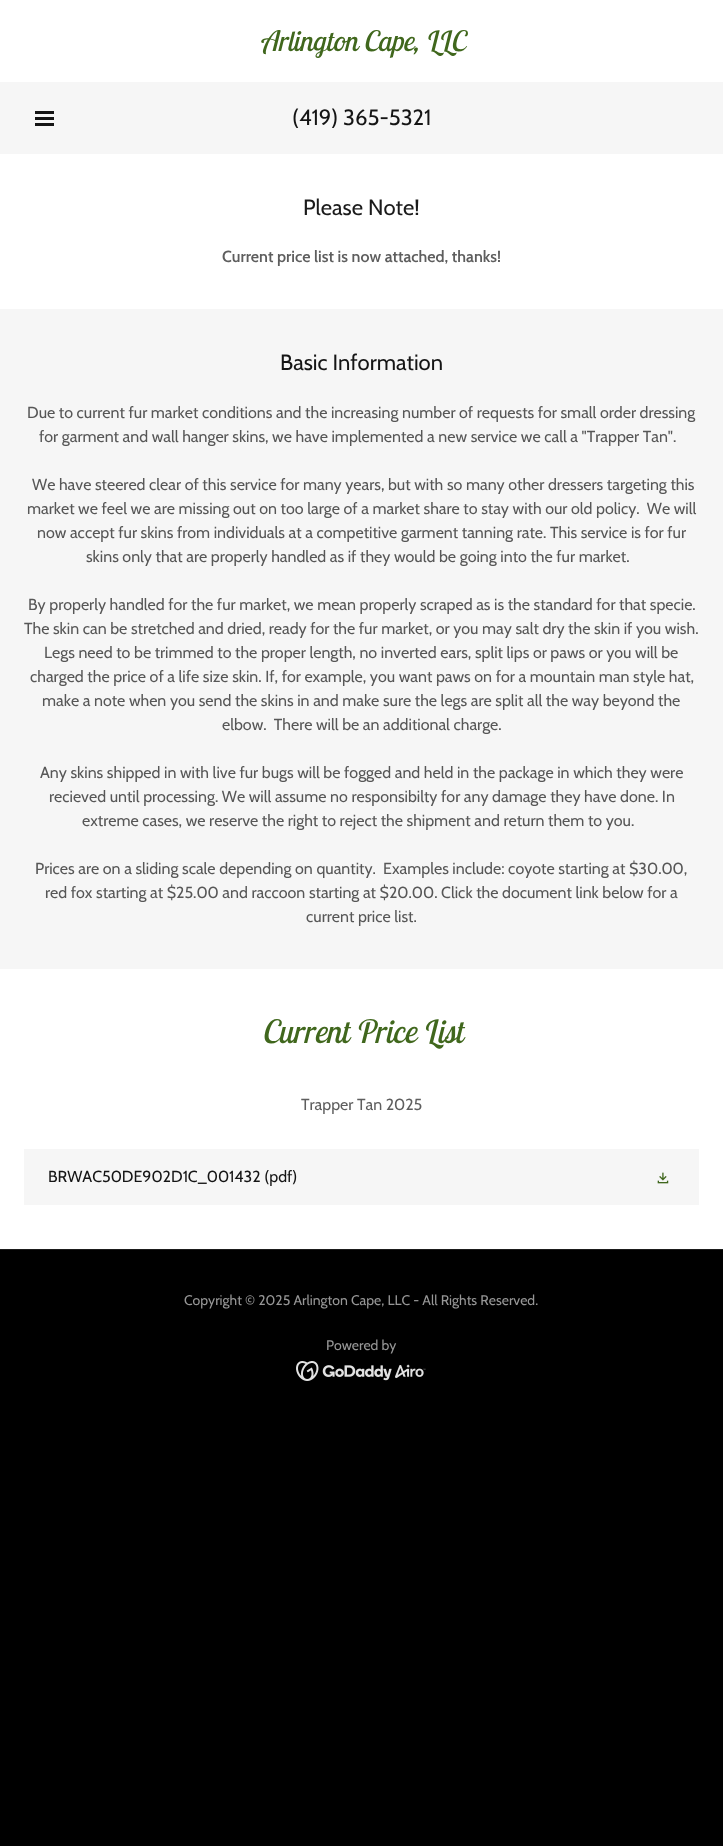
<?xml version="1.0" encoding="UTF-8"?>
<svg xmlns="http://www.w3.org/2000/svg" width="723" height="1846">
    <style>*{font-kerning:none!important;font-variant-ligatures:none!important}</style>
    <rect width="100%" height="100%" fill="#000000"/>
    <rect x="0" y="0" width="723" height="82" fill="#FFFFFF"/>
    <text x="260" y="51" font-family="Lobster Two" font-size="28" font-style="italic" fill="#40671D">Arlington Cape, LLC</text>
    <rect x="0" y="82" width="723" height="72" fill="#F6F6F6"/>
    <rect x="35" y="111" width="19" height="3" fill="#151515"/>
    <rect x="35" y="117" width="19" height="3" fill="#151515"/>
    <rect x="35" y="123" width="19" height="3" fill="#151515"/>
    <text x="292" y="125" font-family="Cabin" font-size="22" fill="#151515">(419) 365-5321</text>
    <rect x="0" y="154" width="723" height="155" fill="#FFFFFF"/>
    <text x="303" y="215" font-family="Cabin" font-size="22" fill="#1B1B1B">Please Note!</text>
    <text x="222" y="262" font-family="Cabin" font-size="16" font-weight="600" fill="#5E5E5E">Current price list is now attached, thanks!</text>
    <rect x="0" y="309" width="723" height="660" fill="#F6F6F6"/>
    <text x="280" y="370" font-family="Cabin" font-size="22" fill="#151515">Basic Information</text>
    <text x="27" y="418" font-family="Cabin" font-size="16" fill="#575757">Due to current fur market conditions and the increasing number of requests for small order dressing</text>
    <text x="39" y="442" font-family="Cabin" font-size="16" fill="#575757">for garment and wall hanger skins, we have implemented a new service we call a "Trapper Tan".</text>
    <text x="32" y="490" font-family="Cabin" font-size="16" fill="#575757">We have steered clear of this service for many years, but with so many other dressers targeting this</text>
    <text x="27" y="514" font-family="Cabin" font-size="16" fill="#575757" xml:space="preserve">market we feel we are missing out on too large of a market share to stay with our old policy.  We will</text>
    <text x="37" y="538" font-family="Cabin" font-size="16" fill="#575757">now accept fur skins from individuals at a competitive garment tanning rate. This service is for fur</text>
    <text x="86" y="562" font-family="Cabin" font-size="16" fill="#575757">skins only that are properly handled as if they would be going into the fur market.</text>
    <text x="28" y="610" font-family="Cabin" font-size="16" fill="#575757">By properly handled for the fur market, we mean properly scraped as is the standard for that specie.</text>
    <text x="24" y="634" font-family="Cabin" font-size="16" fill="#575757">The skin can be stretched and dried, ready for the fur market, or you may salt dry the skin if you wish.</text>
    <text x="44" y="658" font-family="Cabin" font-size="16" fill="#575757">Legs need to be trimmed to the proper length, no inverted ears, split lips or paws or you will be</text>
    <text x="30" y="682" font-family="Cabin" font-size="16" fill="#575757">charged the price of a life size skin. If, for example, you want paws on for a mountain man style hat,</text>
    <text x="42" y="706" font-family="Cabin" font-size="16" fill="#575757">make a note when you send the skins in and make sure the legs are split all the way beyond the</text>
    <text x="222" y="730" font-family="Cabin" font-size="16" fill="#575757" xml:space="preserve">elbow.  There will be an additional charge.</text>
    <text x="40" y="778" font-family="Cabin" font-size="16" fill="#575757">Any skins shipped in with live fur bugs will be fogged and held in the package in which they were</text>
    <text x="49" y="802" font-family="Cabin" font-size="16" fill="#575757">recieved until processing. We will assume no responsibilty for any damage they have done. In</text>
    <text x="82" y="826" font-family="Cabin" font-size="16" fill="#575757">extreme cases, we reserve the right to reject the shipment and return them to you.</text>
    <text x="35" y="874" font-family="Cabin" font-size="16" fill="#575757" xml:space="preserve">Prices are on a sliding scale depending on quantity.  Examples include: coyote starting at $30.00,</text>
    <text x="45" y="898" font-family="Cabin" font-size="16" fill="#575757">red fox starting at $25.00 and raccoon starting at $20.00. Click the document link below for a</text>
    <text x="306" y="922" font-family="Cabin" font-size="16" fill="#575757">current price list.</text>
    <rect x="0" y="969" width="723" height="280" fill="#FFFFFF"/>
    <text x="261" y="1043" font-family="Lobster Two" font-size="32" font-style="italic" fill="#40671D">Current Price List</text>
    <text x="301" y="1110" font-family="Cabin" font-size="16" fill="#5E5E5E">Trapper Tan 2025</text>
    <rect x="24" y="1149" width="675" height="56" fill="#F6F6F6"/>
    <text x="48" y="1182" font-family="Cabin" font-size="16" fill="#151515">BRWAC50DE902D1C_001432 (pdf)</text>
    <image x="657" y="1172" width="12" height="12" href="img_01.png"/>
    <rect x="0" y="1249" width="723" height="1" fill="#1B1B1B"/>
    <text x="184" y="1305" font-family="Cabin" font-size="14" fill="#969696">Copyright © 2025 Arlington Cape, LLC - All Rights Reserved.</text>
    <text x="326" y="1350" font-family="Cabin" font-size="14" fill="#969696">Powered by</text>
    <image x="296" y="1361" width="130" height="20" href="img_02.png"/>
</svg>
